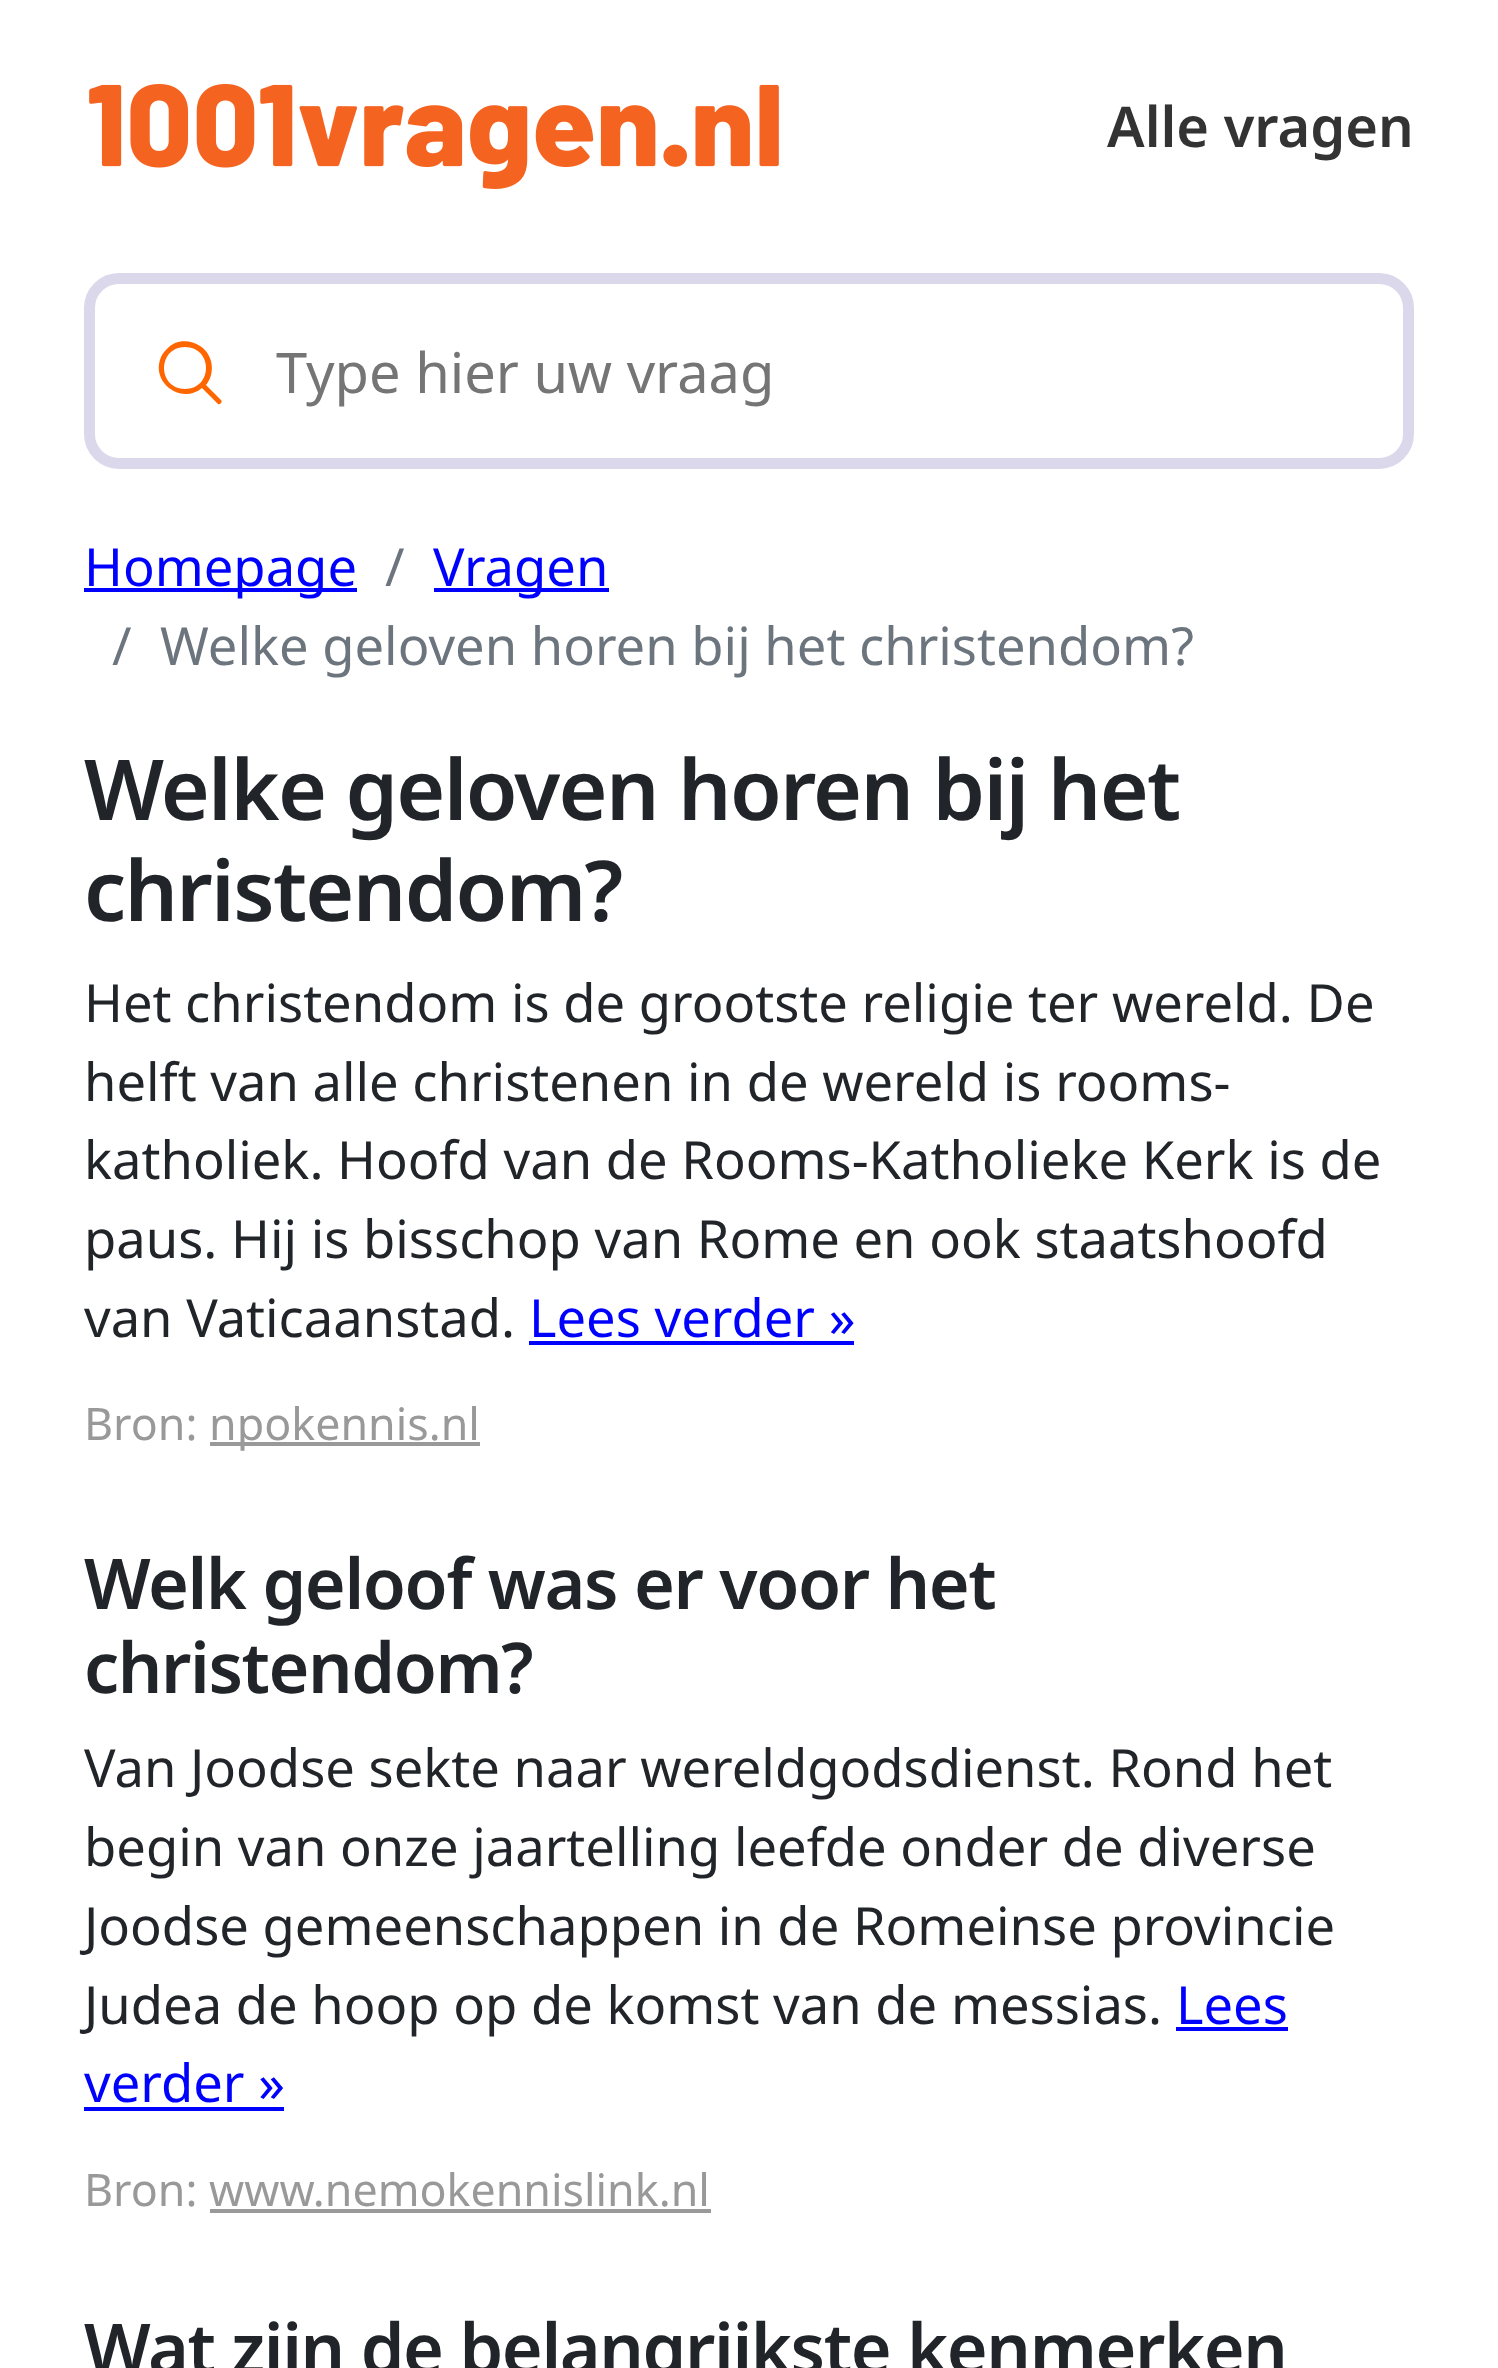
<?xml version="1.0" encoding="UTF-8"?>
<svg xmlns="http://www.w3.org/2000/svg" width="1498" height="2368">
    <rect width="100%" height="100%" fill="#FFFFFF"/>
    <image x="89" y="84" width="690" height="105" href="img_01.png"/>
    <text x="1107" y="147" font-family="Noto Sans" font-size="56" font-weight="600" fill="#333333">Alle vragen</text>
    <rect x="89.5" y="278.5" width="1319" height="185" rx="29.5" fill="none" stroke="#DBD8EC" stroke-width="11"/>
    <path d="M 221 400 L 206 385 C 216 373 213 354 200 346 C 193 341 183 340 175 343 C 169 346 164 351 161 357 C 150 383 182 405 202 388 L 218 404 C 220 405 223 402 221 400 Z M 185 389 C 157 389 157 347 185 347 C 213 347 213 389 185 389 Z" fill="#FF6600"/>
    <text x="276" y="393" font-family="Noto Sans" font-size="56" fill="#757575">Type hier uw vraag</text>
    <rect x="84" y="588" width="273" height="4" fill="#0000FF"/>
    <text x="84" y="586" font-family="Noto Sans" font-size="52.5" fill="#0000FF">Homepage</text>
    <text x="385" y="586" font-family="Noto Sans" font-size="52.5" fill="#6C757D">/</text>
    <rect x="434" y="588" width="175" height="4" fill="#0000FF"/>
    <text x="433" y="586" font-family="Noto Sans" font-size="52.5" fill="#0000FF">Vragen</text>
    <text x="112" y="665" font-family="Noto Sans" font-size="52.5" fill="#6C757D">/</text>
    <text x="160" y="665" font-family="Noto Sans" font-size="52.5" fill="#6C757D">Welke geloven horen bij het christendom?</text>
    <text font-family="Noto Sans" font-size="84" font-weight="600" letter-spacing="-1.7" fill="#212529">
        <tspan x="84" y="820">Welke geloven horen bij het</tspan>
        <tspan x="84" y="921">christendom?</tspan>
    </text>
    <text font-family="Noto Sans" font-size="52.5" fill="#212529">
        <tspan x="84" y="1022">Het christendom is de grootste religie ter wereld. De</tspan>
        <tspan x="84" y="1101">helft van alle christenen in de wereld is rooms-</tspan>
        <tspan x="84" y="1179">katholiek. Hoofd van de Rooms-Katholieke Kerk is de</tspan>
        <tspan x="84" y="1258">paus. Hij is bisschop van Rome en ook staatshoofd</tspan>
        <tspan x="84" y="1337">van Vaticaanstad.</tspan>
    </text>
    <text x="529" y="1337" font-family="Noto Sans" font-size="52.5" fill="#0000FF">Lees verder »</text>
    <rect x="529" y="1341" width="325" height="4" fill="#0000FF"/>
    <text x="84" y="1440" font-family="Noto Sans" font-size="44.75" fill="#999999">Bron:</text>
    <rect x="210" y="1442" width="270" height="4" fill="#999999"/>
    <text x="209" y="1440" font-family="Noto Sans" font-size="44.75" fill="#999999">npokennis.nl</text>
    <text font-family="Noto Sans" font-size="70" font-weight="600" letter-spacing="-1.4" fill="#212529">
        <tspan x="84" y="1609">Welk geloof was er voor het</tspan>
        <tspan x="84" y="1693">christendom?</tspan>
    </text>
    <text font-family="Noto Sans" font-size="52.5" fill="#212529">
        <tspan x="84" y="1787">Van Joodse sekte naar wereldgodsdienst. Rond het</tspan>
        <tspan x="84" y="1866">begin van onze jaartelling leefde onder de diverse</tspan>
        <tspan x="84" y="1945">Joodse gemeenschappen in de Romeinse provincie</tspan>
        <tspan x="84" y="2024">Judea de hoop op de komst van de messias.</tspan>
    </text>
    <text x="1176" y="2024" font-family="Noto Sans" font-size="52.5" fill="#0000FF">Lees</text>
    <rect x="1176" y="2027" width="112" height="4" fill="#0000FF"/>
    <text x="84" y="2102" font-family="Noto Sans" font-size="52.5" fill="#0000FF">verder »</text>
    <rect x="84" y="2107" width="200" height="4" fill="#0000FF"/>
    <text x="84" y="2206" font-family="Noto Sans" font-size="44.75" fill="#999999">Bron: www.nemokennislink.nl</text>
    <rect x="210" y="2209" width="501" height="4" fill="#999999"/>
    <text x="84" y="2374" font-family="Noto Sans" font-size="70" font-weight="600" letter-spacing="-1.4" fill="#212529">Wat zijn de belangrijkste kenmerken</text>
</svg>
